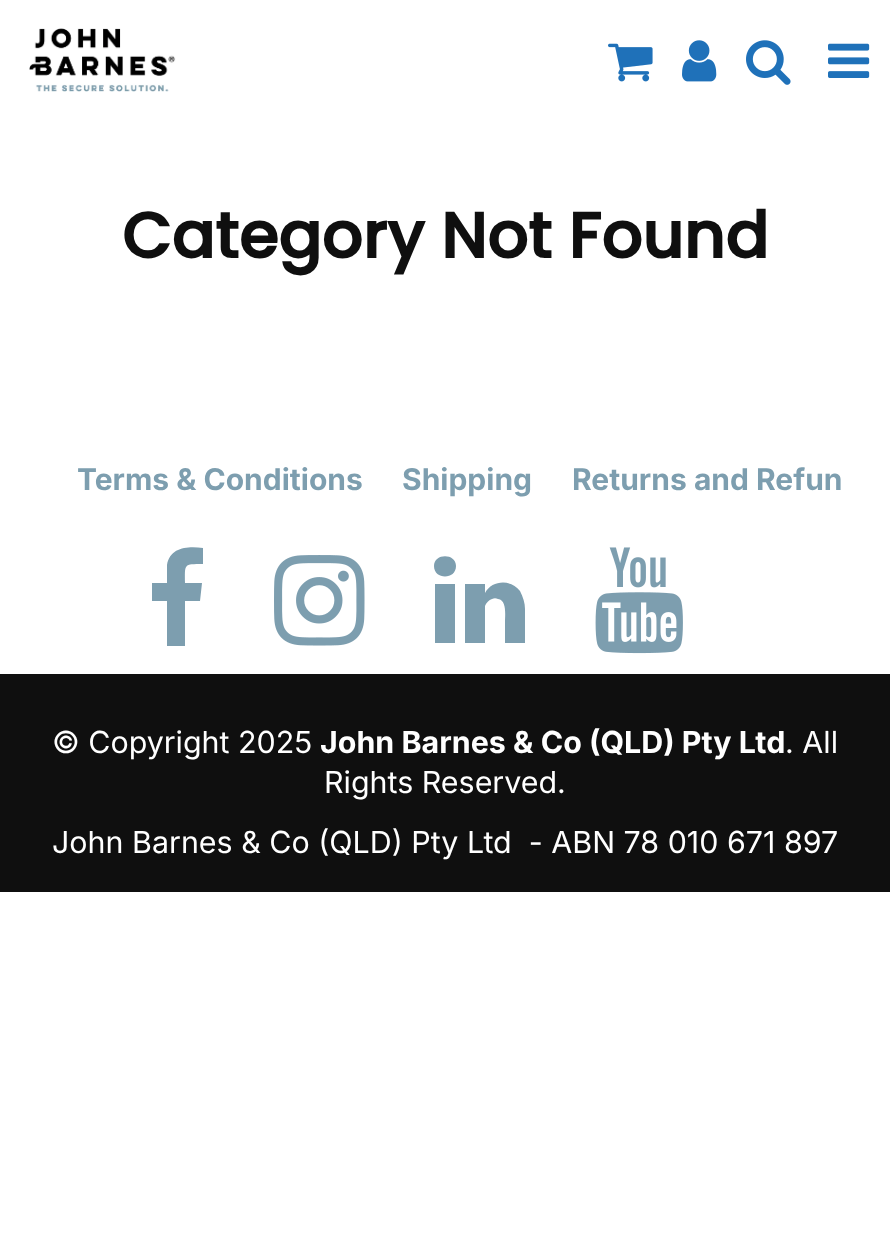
<?xml version="1.0" encoding="UTF-8"?>
<svg xmlns="http://www.w3.org/2000/svg" width="890" height="1259">
    <rect width="100%" height="100%" fill="#FFFFFF"/>
    <image x="29" y="28" width="147" height="64" href="img_01.png"/>
    <image x="608" y="43" width="45" height="39" href="img_02.png"/>
    <image x="682" y="40" width="35" height="42" href="img_03.png"/>
    <image x="746" y="40" width="45" height="45" href="img_04.png"/>
    <image x="828" y="43" width="42" height="35" href="img_05.png"/>
    <text x="122" y="258" font-family="Poppins" font-size="64" font-weight="700" fill="#0F0F0F">Category Not Found</text>
    <text x="77" y="490" font-family="Inter" font-size="30" font-weight="700" fill="#7D9EAF">Terms &amp; Conditions</text>
    <text x="402" y="490" font-family="Inter" font-size="30" font-weight="700" fill="#7D9EAF">Shipping</text>
    <text x="572" y="490" font-family="Inter" font-size="30" font-weight="700" fill="#7D9EAF">Returns and Refun</text>
    <path d="M 203 548 V 564 C 183 564 185 564 185 583 H 202 L 200 601 H 185 V 646 H 167 V 601 H 152 V 583 H 167 V 565 C 170 547 188 546 203 548 Z" fill="#7D9EAF"/>
    <image x="274" y="555" width="91" height="91" href="img_06.png"/>
    <path d="M 455 584 V 643 H 435 V 584 Z M 456 566 C 456 580 434 580 434 566 C 434 553 456 553 456 566 Z M 525 609 V 643 H 505 V 622 C 505 615 507 600 498 599 C 496 598 494 598 492 599 C 489 600 486 603 485 606 V 643 H 465 V 584 H 485 V 593 C 492 580 511 579 520 591 C 523 597 525 603 525 609 Z" fill="#7D9EAF"/>
    <image x="595" y="547" width="88" height="107" href="img_07.png"/>
    <rect x="0" y="674" width="890" height="218" fill="#0F0F0F"/>
    <text x="52" y="753" font-family="Inter" font-size="30.4" fill="#FFFFFF">© Copyright 2025</text>
    <text x="320" y="753" font-family="Inter" font-size="30.4" font-weight="700" fill="#FFFFFF">John Barnes &amp; Co (QLD) Pty Ltd</text>
    <text x="785" y="753" font-family="Inter" font-size="30.4" fill="#FFFFFF">. All</text>
    <text x="324" y="793" font-family="Inter" font-size="30.4" fill="#FFFFFF">Rights Reserved.</text>
    <text x="52" y="853" font-family="Inter" font-size="30.4" fill="#FFFFFF" xml:space="preserve">John Barnes &amp; Co (QLD) Pty Ltd  - ABN 78 010 671 897</text>
</svg>
